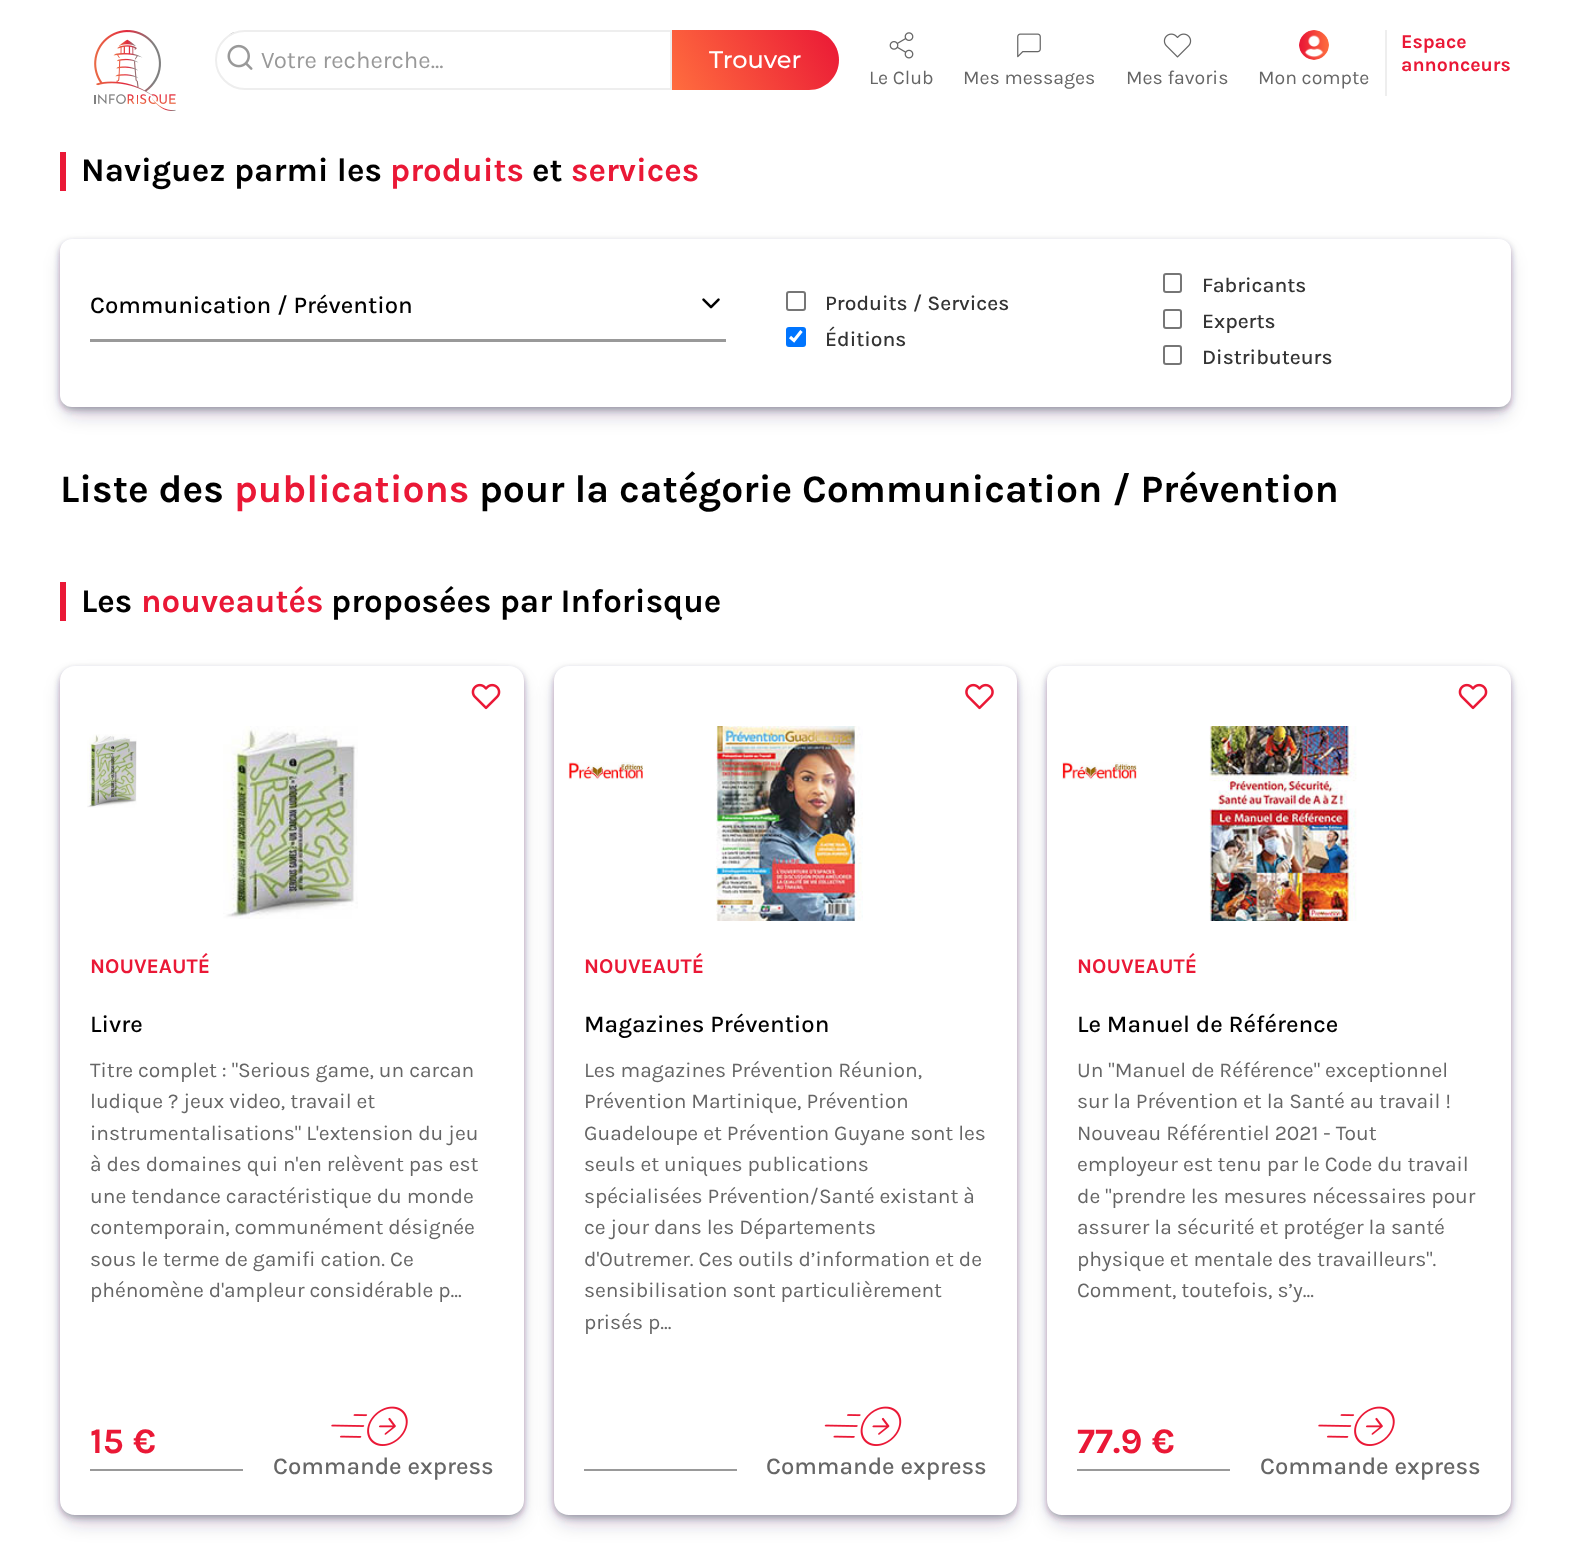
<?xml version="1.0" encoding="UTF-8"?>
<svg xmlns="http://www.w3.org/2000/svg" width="1570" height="1549">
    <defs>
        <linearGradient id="g1" gradientUnits="userSpaceOnUse" x1="831" y1="16" x2="680" y2="104"><stop offset="0" stop-color="#EA1836"/><stop offset="1" stop-color="#FF6D3E"/></linearGradient>
        <filter id="blur1" x="-50%" y="-200%" width="200%" height="500%"><feGaussianBlur stdDeviation="10"/></filter>
        <filter id="blur2" x="-50%" y="-200%" width="200%" height="500%"><feGaussianBlur stdDeviation="3"/></filter>
        <clipPath id="clip1"><path d="M 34 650 H 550 V 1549 H 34 Z M 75 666 H 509 C 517.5 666 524 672.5 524 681 V 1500 C 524 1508.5 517.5 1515 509 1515 H 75 C 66.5 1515 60 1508.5 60 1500 V 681 C 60 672.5 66.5 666 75 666 Z" clip-rule="evenodd"/></clipPath>
        <clipPath id="clip2"><path d="M 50 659 H 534 V 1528 H 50 Z M 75 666 H 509 C 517.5 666 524 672.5 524 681 V 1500 C 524 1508.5 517.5 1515 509 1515 H 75 C 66.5 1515 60 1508.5 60 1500 V 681 C 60 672.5 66.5 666 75 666 Z" clip-rule="evenodd"/></clipPath>
        <clipPath id="clip3"><path d="M 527 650 H 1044 V 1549 H 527 Z M 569 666 H 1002 C 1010.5 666 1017 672.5 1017 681 V 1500 C 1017 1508.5 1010.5 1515 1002 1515 H 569 C 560.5 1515 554 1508.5 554 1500 V 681 C 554 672.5 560.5 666 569 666 Z" clip-rule="evenodd"/></clipPath>
        <clipPath id="clip4"><path d="M 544 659 H 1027 V 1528 H 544 Z M 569 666 H 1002 C 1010.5 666 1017 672.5 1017 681 V 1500 C 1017 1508.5 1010.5 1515 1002 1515 H 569 C 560.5 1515 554 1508.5 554 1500 V 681 C 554 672.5 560.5 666 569 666 Z" clip-rule="evenodd"/></clipPath>
        <clipPath id="clip5"><path d="M 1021 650 H 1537 V 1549 H 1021 Z M 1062 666 H 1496 C 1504.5 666 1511 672.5 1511 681 V 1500 C 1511 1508.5 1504.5 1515 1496 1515 H 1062 C 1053.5 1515 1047 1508.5 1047 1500 V 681 C 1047 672.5 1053.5 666 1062 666 Z" clip-rule="evenodd"/></clipPath>
        <clipPath id="clip6"><path d="M 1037 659 H 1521 V 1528 H 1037 Z M 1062 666 H 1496 C 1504.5 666 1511 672.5 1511 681 V 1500 C 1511 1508.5 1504.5 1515 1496 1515 H 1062 C 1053.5 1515 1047 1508.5 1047 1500 V 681 C 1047 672.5 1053.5 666 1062 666 Z" clip-rule="evenodd"/></clipPath>
    </defs>
    <rect width="100%" height="100%" fill="#FFFFFF"/>
    <image x="94" y="30" width="82" height="81" href="img_01.png"/>
    <image x="227" y="32" width="13" height="6" href="img_02.png"/>
    <path d="M 245 31 H 671 V 89 H 245 C 229 89 216 76 216 60 C 216 44 229 31 245 31 Z" fill="#FFFFFF" stroke="#EEEEEE" stroke-width="2"/>
    <image x="227" y="44" width="26" height="26" href="img_03.png"/>
    <text x="261" y="68" font-family="Karla" font-size="24" fill="#999999">Votre recherche...</text>
    <path d="M 672 30 H 809 C 825.5 30 839 43.5 839 60 C 839 76.5 825.5 90 809 90 H 672 Z" fill="url(#g1)"/>
    <text x="709" y="68" font-family="Montserrat" font-size="24" font-weight="500" fill="#FFFFFF">Trouver</text>
    <rect x="1385" y="30" width="2" height="66" fill="#EEEEEE"/>
    <text font-family="Karla" font-size="19.5" font-weight="700" fill="#EA1836">
        <tspan x="1401" y="48">Espace</tspan>
        <tspan x="1401" y="71">annonceurs</tspan>
    </text>
    <image x="889" y="32" width="25" height="27" href="img_04.png"/>
    <text x="869" y="84" font-family="Karla" font-size="19.5" fill="#666666">Le Club</text>
    <image x="1017" y="33" width="24" height="25" href="img_05.png"/>
    <text x="963" y="84" font-family="Karla" font-size="19.5" fill="#666666">Mes messages</text>
    <image x="1163" y="33" width="29" height="25" href="img_06.png"/>
    <text x="1126" y="84" font-family="Karla" font-size="19.5" fill="#666666">Mes favoris</text>
    <image x="1299" y="30" width="30" height="30" href="img_07.png"/>
    <text x="1258" y="84" font-family="Karla" font-size="19.5" fill="#666666">Mon compte</text>
    <rect x="60" y="152" width="6" height="39" fill="#EA1836"/>
    <text x="81" y="181" font-family="Karla" font-size="33" font-weight="700" fill="#000000">Naviguez parmi les</text>
    <text x="390" y="181" font-family="Karla" font-size="33" font-weight="700" fill="#EA1836">produits</text>
    <text x="532" y="181" font-family="Karla" font-size="33" font-weight="700" fill="#000000">et</text>
    <text x="571" y="181" font-family="Karla" font-size="33" font-weight="700" fill="#EA1836">services</text>
    <rect x="65" y="254" width="1441" height="159" rx="8" fill="#2D2342" fill-opacity="0.25" filter="url(#blur1)"/>
    <rect x="60" y="242" width="1451" height="168" rx="12" fill="#2D2342" fill-opacity="0.35" filter="url(#blur2)"/>
    <rect x="60" y="239" width="1451" height="168" rx="12" fill="#FFFFFF"/>
    <rect x="90" y="339" width="636" height="3" fill="#999999"/>
    <text x="90" y="313" font-family="Karla" font-size="24" font-weight="500" fill="#000000">Communication / Prévention</text>
    <image x="702" y="298" width="18" height="11" href="img_08.png"/>
    <rect x="787" y="292" width="18" height="18" rx="2" fill="none" stroke="#767676" stroke-width="2"/>
    <text x="825" y="310" font-family="Karla" font-size="21" font-weight="500" fill="#333333">Produits / Services</text>
    <rect x="786" y="327" width="20" height="20" rx="3" fill="#0075FF"/>
    <path d="M 790 337 L 794 340.5 L 801.5 331" fill="none" stroke="#FFFFFF" stroke-width="3.1"/>
    <text x="825" y="346" font-family="Karla" font-size="21" font-weight="500" fill="#333333">Éditions</text>
    <rect x="1164" y="274" width="17" height="18" rx="2" fill="none" stroke="#767676" stroke-width="2"/>
    <text x="1202" y="292" font-family="Karla" font-size="21" font-weight="500" fill="#333333">Fabricants</text>
    <rect x="1164" y="310" width="17" height="18" rx="2" fill="none" stroke="#767676" stroke-width="2"/>
    <text x="1202" y="328" font-family="Karla" font-size="21" font-weight="500" fill="#333333">Experts</text>
    <rect x="1164" y="346" width="17" height="18" rx="2" fill="none" stroke="#767676" stroke-width="2"/>
    <text x="1202" y="364" font-family="Karla" font-size="21" font-weight="500" fill="#333333">Distributeurs</text>
    <text x="60" y="502" font-family="Karla" font-size="39" font-weight="700" fill="#000000">Liste des</text>
    <text x="234" y="502" font-family="Karla" font-size="39" font-weight="700" fill="#EA1836">publications</text>
    <text x="479" y="502" font-family="Karla" font-size="39" font-weight="700" fill="#000000">pour la catégorie Communication / Prévention</text>
    <rect x="60" y="582" width="6" height="39" fill="#EA1836"/>
    <text x="81" y="612" font-family="Karla" font-size="33" font-weight="700" fill="#000000">Les</text>
    <text x="141" y="612" font-family="Karla" font-size="33" font-weight="700" fill="#EA1836">nouveautés</text>
    <text x="331" y="612" font-family="Karla" font-size="33" font-weight="700" fill="#000000">proposées par Inforisque</text>
    <g clip-path="url(#clip1)">
        <rect x="65" y="681" width="454" height="840" rx="11" fill="#2D2342" fill-opacity="0.25" filter="url(#blur1)"/>
    </g>
    <g clip-path="url(#clip2)">
        <rect x="60" y="669" width="464" height="849" rx="15" fill="#2D2342" fill-opacity="0.35" filter="url(#blur2)"/>
    </g>
    <image x="471" y="683" width="30" height="27" href="img_09.png"/>
    <image x="87" y="734" width="50" height="74" href="img_10.png"/>
    <image x="223" y="726" width="135" height="193" href="img_11.png"/>
    <text x="90" y="973" font-family="Karla" font-size="21" font-weight="700" fill="#EA1836">NOUVEAUTÉ</text>
    <text x="90" y="1032" font-family="Karla" font-size="24" font-weight="500" fill="#000000">Livre</text>
    <text font-family="Karla" font-size="21" fill="#666666">
        <tspan x="90" y="1077">Titre complet : "Serious game, un carcan</tspan>
        <tspan x="90" y="1108">ludique ? jeux video, travail et</tspan>
        <tspan x="90" y="1140">instrumentalisations" L'extension du jeu</tspan>
        <tspan x="90" y="1171">à des domaines qui n'en relèvent pas est</tspan>
        <tspan x="90" y="1203">une tendance caractéristique du monde</tspan>
        <tspan x="90" y="1234">contemporain, communément désignée</tspan>
        <tspan x="90" y="1266">sous le terme de gamifi cation. Ce</tspan>
        <tspan x="90" y="1297">phénomène d'ampleur considérable p...</tspan>
    </text>
    <rect x="90" y="1469" width="153" height="2" fill="#999999"/>
    <text x="90" y="1453" font-family="Karla" font-size="36" font-weight="700" fill="#EA1836">15 €</text>
    <image x="367" y="1406" width="41" height="40" href="img_13.png"/>
    <image x="331" y="1414" width="37" height="24" href="img_12.png"/>
    <text x="273" y="1474" font-family="Karla" font-size="24" font-weight="500" fill="#666666">Commande express</text>
    <g clip-path="url(#clip3)">
        <rect x="558" y="681" width="455" height="840" rx="11" fill="#2D2342" fill-opacity="0.25" filter="url(#blur1)"/>
    </g>
    <g clip-path="url(#clip4)">
        <rect x="554" y="669" width="463" height="849" rx="15" fill="#2D2342" fill-opacity="0.35" filter="url(#blur2)"/>
    </g>
    <image x="965" y="683" width="29" height="27" href="img_14.png"/>
    <image x="568" y="762" width="75" height="18" href="img_15.png"/>
    <image x="716" y="726" width="147" height="195" href="img_16.png"/>
    <text x="584" y="973" font-family="Karla" font-size="21" font-weight="700" fill="#EA1836">NOUVEAUTÉ</text>
    <text x="584" y="1032" font-family="Karla" font-size="24" font-weight="500" fill="#000000">Magazines Prévention</text>
    <text font-family="Karla" font-size="21" fill="#666666">
        <tspan x="584" y="1077">Les magazines Prévention Réunion,</tspan>
        <tspan x="584" y="1108">Prévention Martinique, Prévention</tspan>
        <tspan x="584" y="1140">Guadeloupe et Prévention Guyane sont les</tspan>
        <tspan x="584" y="1171">seuls et uniques publications</tspan>
        <tspan x="584" y="1203">spécialisées Prévention/Santé existant à</tspan>
        <tspan x="584" y="1234">ce jour dans les Départements</tspan>
        <tspan x="584" y="1266">d'Outremer. Ces outils d’information et de</tspan>
        <tspan x="584" y="1297">sensibilisation sont particulièrement</tspan>
        <tspan x="584" y="1329">prisés p...</tspan>
    </text>
    <rect x="584" y="1469" width="153" height="2" fill="#999999"/>
    <image x="860" y="1406" width="42" height="40" href="img_18.png"/>
    <image x="824" y="1414" width="37" height="24" href="img_17.png"/>
    <text x="766" y="1474" font-family="Karla" font-size="24" font-weight="500" fill="#666666">Commande express</text>
    <g clip-path="url(#clip5)">
        <rect x="1052" y="681" width="454" height="840" rx="11" fill="#2D2342" fill-opacity="0.25" filter="url(#blur1)"/>
    </g>
    <g clip-path="url(#clip6)">
        <rect x="1047" y="669" width="464" height="849" rx="15" fill="#2D2342" fill-opacity="0.35" filter="url(#blur2)"/>
    </g>
    <image x="1458" y="683" width="30" height="27" href="img_09.png"/>
    <image x="1062" y="762" width="75" height="18" href="img_19.png"/>
    <image x="1209" y="726" width="148" height="195" href="img_20.png"/>
    <text x="1077" y="973" font-family="Karla" font-size="21" font-weight="700" fill="#EA1836">NOUVEAUTÉ</text>
    <text x="1077" y="1032" font-family="Karla" font-size="24" font-weight="500" fill="#000000">Le Manuel de Référence</text>
    <text font-family="Karla" font-size="21" fill="#666666">
        <tspan x="1077" y="1077">Un "Manuel de Référence" exceptionnel</tspan>
        <tspan x="1077" y="1108">sur la Prévention et la Santé au travail !</tspan>
        <tspan x="1077" y="1140">Nouveau Référentiel 2021 - Tout</tspan>
        <tspan x="1077" y="1171">employeur est tenu par le Code du travail</tspan>
        <tspan x="1077" y="1203">de "prendre les mesures nécessaires pour</tspan>
        <tspan x="1077" y="1234">assurer la sécurité et protéger la santé</tspan>
        <tspan x="1077" y="1266">physique et mentale des travailleurs".</tspan>
        <tspan x="1077" y="1297">Comment, toutefois, s’y...</tspan>
    </text>
    <rect x="1077" y="1469" width="153" height="2" fill="#999999"/>
    <text x="1077" y="1453" font-family="Karla" font-size="36" font-weight="700" fill="#EA1836">77.9 €</text>
    <image x="1354" y="1406" width="41" height="40" href="img_13.png"/>
    <image x="1318" y="1414" width="37" height="24" href="img_12.png"/>
    <text x="1260" y="1474" font-family="Karla" font-size="24" font-weight="500" fill="#666666">Commande express</text>
</svg>
